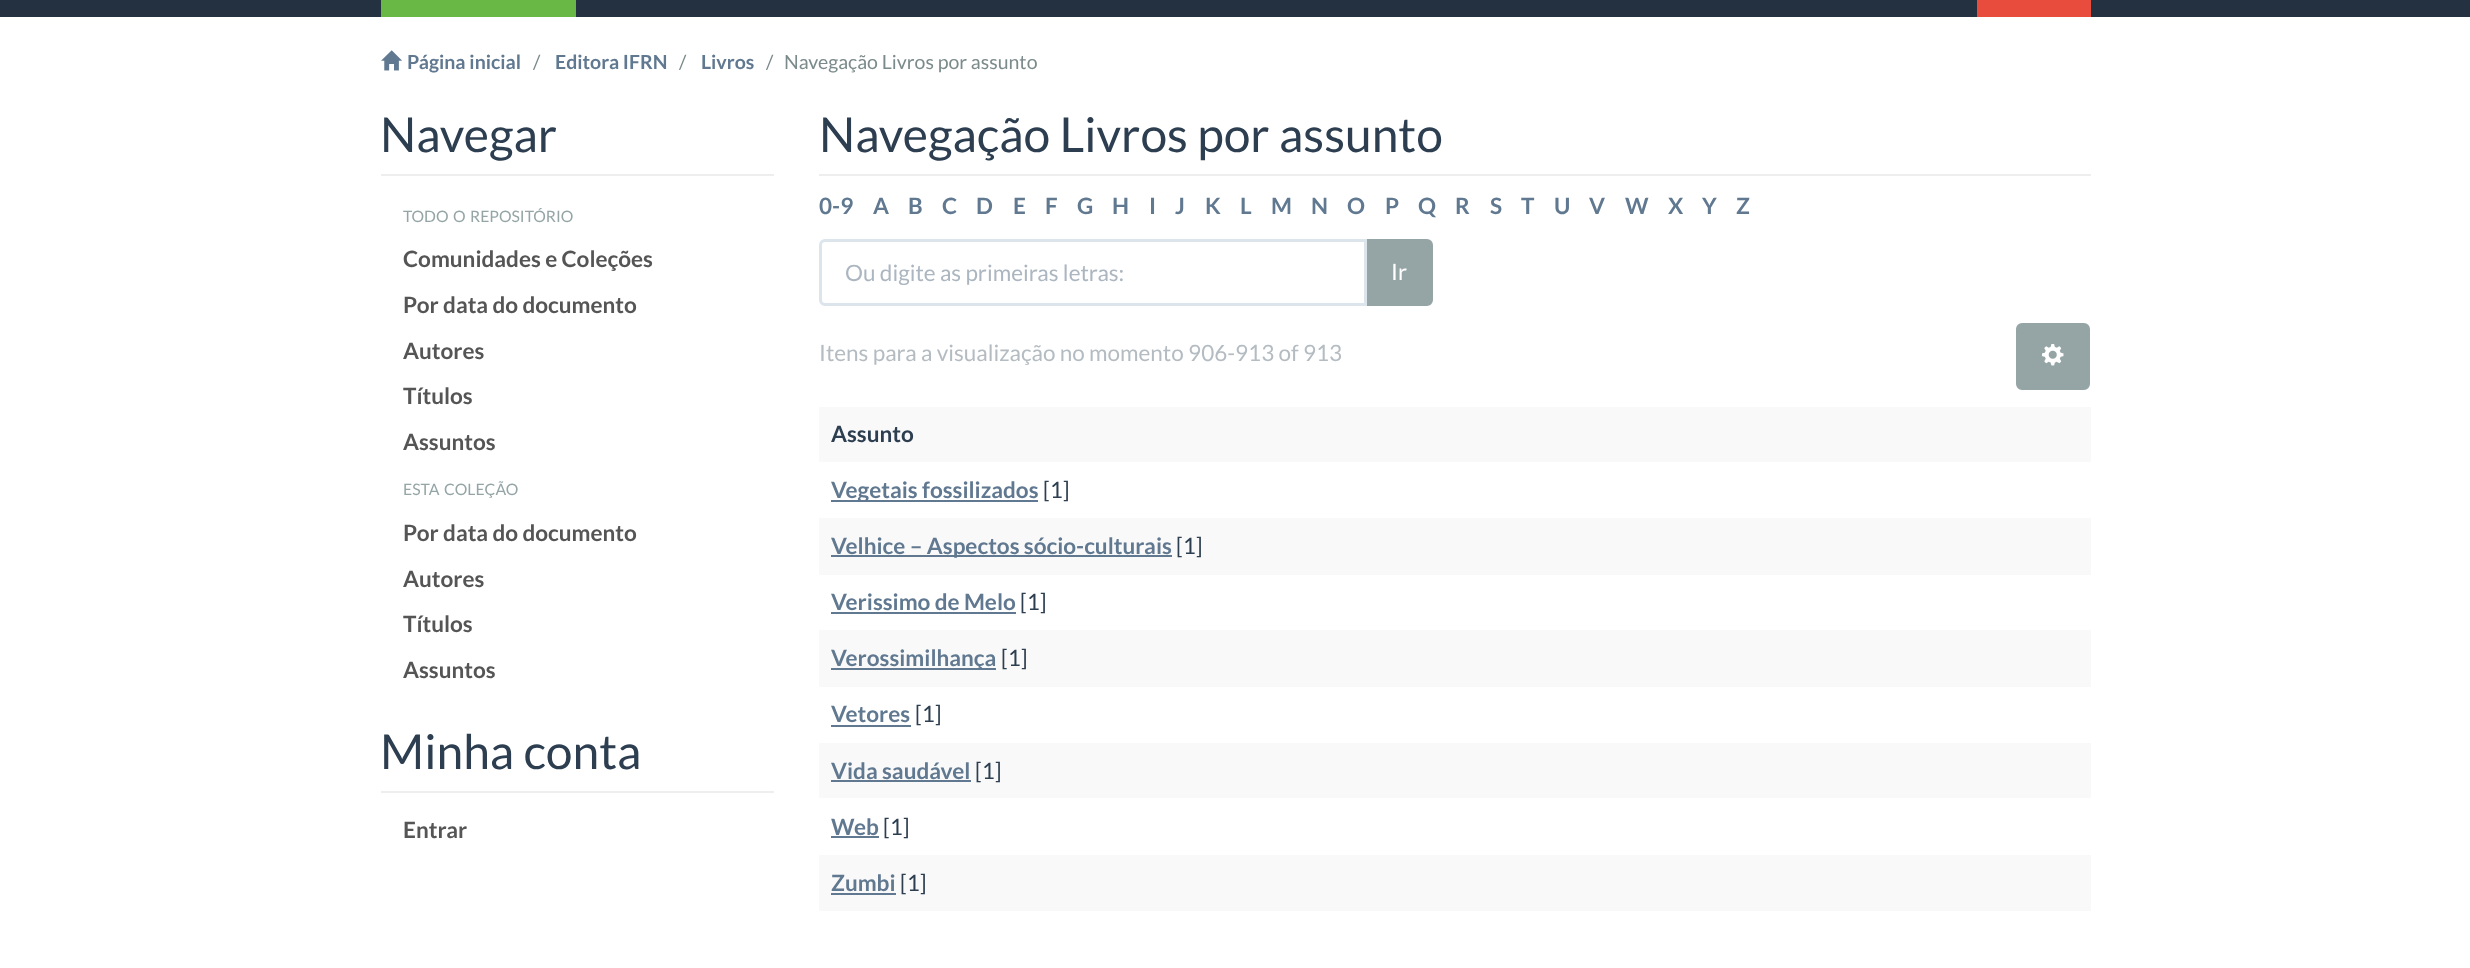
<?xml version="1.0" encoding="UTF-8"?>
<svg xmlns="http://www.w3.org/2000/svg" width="2470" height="968">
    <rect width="100%" height="100%" fill="#FFFFFF"/>
    <rect x="0" y="0" width="2470" height="17" fill="#233140"/>
    <rect x="381" y="0" width="195" height="17" fill="#69B845"/>
    <rect x="1977" y="0" width="114" height="17" fill="#E74C3C"/>
    <image x="381" y="50" width="21" height="21" href="img_01.png"/>
    <text x="407" y="69" font-family="Lato" font-size="19.5" font-weight="700" fill="#607890">Página inicial</text>
    <text x="533" y="69" font-family="Lato" font-size="19.5" fill="#7B8A8B">/</text>
    <text x="555" y="69" font-family="Lato" font-size="19.5" font-weight="700" fill="#607890">Editora IFRN</text>
    <text x="679" y="69" font-family="Lato" font-size="19.5" fill="#7B8A8B">/</text>
    <text x="701" y="69" font-family="Lato" font-size="19.5" font-weight="700" fill="#607890">Livros</text>
    <text x="766" y="69" font-family="Lato" font-size="19.5" fill="#7B8A8B">/</text>
    <text x="784" y="69" font-family="Lato" font-size="19.5" fill="#7B8A8B">Navegação Livros por assunto</text>
    <rect x="381" y="174" width="393" height="2" fill="#EEEEEE"/>
    <text x="380" y="152" font-family="Lato" font-size="48" fill="#2C3E50">Navegar</text>
    <text x="403" y="222" font-family="Lato" font-size="15.75" fill="#95A5A6">TODO</text>
    <text x="453" y="222" font-family="Lato" font-size="15.75" fill="#95A5A6">O</text>
    <text x="470" y="222" font-family="Lato" font-size="15.75" fill="#95A5A6">REPOSITÓRIO</text>
    <text x="403" y="267" font-family="Lato" font-size="22.5" font-weight="700" fill="#555555">Comunidades e Coleções</text>
    <text x="403" y="313" font-family="Lato" font-size="22.5" font-weight="700" fill="#555555">Por data do documento</text>
    <text x="403" y="359" font-family="Lato" font-size="22.5" font-weight="700" fill="#555555">Autores</text>
    <text x="403" y="404" font-family="Lato" font-size="22.5" font-weight="700" fill="#555555">Títulos</text>
    <text x="403" y="450" font-family="Lato" font-size="22.5" font-weight="700" fill="#555555">Assuntos</text>
    <text x="403" y="495" font-family="Lato" font-size="15.75" fill="#95A5A6">ESTA</text>
    <text x="444" y="495" font-family="Lato" font-size="15.75" fill="#95A5A6">COLEÇÃO</text>
    <text x="403" y="541" font-family="Lato" font-size="22.5" font-weight="700" fill="#555555">Por data do documento</text>
    <text x="403" y="587" font-family="Lato" font-size="22.5" font-weight="700" fill="#555555">Autores</text>
    <text x="403" y="632" font-family="Lato" font-size="22.5" font-weight="700" fill="#555555">Títulos</text>
    <text x="403" y="678" font-family="Lato" font-size="22.5" font-weight="700" fill="#555555">Assuntos</text>
    <rect x="381" y="791" width="393" height="2" fill="#EEEEEE"/>
    <text x="380" y="769" font-family="Lato" font-size="48" fill="#2C3E50">Minha conta</text>
    <text x="403" y="838" font-family="Lato" font-size="22.5" font-weight="700" fill="#555555">Entrar</text>
    <rect x="819" y="174" width="1272" height="2" fill="#EEEEEE"/>
    <text x="819" y="152" font-family="Lato" font-size="48" fill="#2C3E50">Navegação Livros por assunto</text>
    <text x="819" y="214" font-family="Lato" font-size="22.5" font-weight="700" fill="#607890">0-9</text>
    <text x="873" y="214" font-family="Lato" font-size="22.5" font-weight="700" fill="#607890">A</text>
    <text x="908" y="214" font-family="Lato" font-size="22.5" font-weight="700" fill="#607890">B</text>
    <text x="942" y="214" font-family="Lato" font-size="22.5" font-weight="700" fill="#607890">C</text>
    <text x="976" y="214" font-family="Lato" font-size="22.5" font-weight="700" fill="#607890">D</text>
    <text x="1013" y="214" font-family="Lato" font-size="22.5" font-weight="700" fill="#607890">E</text>
    <text x="1045" y="214" font-family="Lato" font-size="22.5" font-weight="700" fill="#607890">F</text>
    <text x="1077" y="214" font-family="Lato" font-size="22.5" font-weight="700" fill="#607890">G</text>
    <text x="1112" y="214" font-family="Lato" font-size="22.5" font-weight="700" fill="#607890">H</text>
    <text x="1149" y="214" font-family="Lato" font-size="22.5" font-weight="700" fill="#607890">I</text>
    <text x="1175" y="214" font-family="Lato" font-size="22.5" font-weight="700" fill="#607890">J</text>
    <text x="1205" y="214" font-family="Lato" font-size="22.5" font-weight="700" fill="#607890">K</text>
    <text x="1240" y="214" font-family="Lato" font-size="22.5" font-weight="700" fill="#607890">L</text>
    <text x="1271" y="214" font-family="Lato" font-size="22.5" font-weight="700" fill="#607890">M</text>
    <text x="1311" y="214" font-family="Lato" font-size="22.5" font-weight="700" fill="#607890">N</text>
    <text x="1347" y="214" font-family="Lato" font-size="22.5" font-weight="700" fill="#607890">O</text>
    <text x="1385" y="214" font-family="Lato" font-size="22.5" font-weight="700" fill="#607890">P</text>
    <text x="1418" y="214" font-family="Lato" font-size="22.5" font-weight="700" fill="#607890">Q</text>
    <text x="1455" y="214" font-family="Lato" font-size="22.5" font-weight="700" fill="#607890">R</text>
    <text x="1490" y="214" font-family="Lato" font-size="22.5" font-weight="700" fill="#607890">S</text>
    <text x="1521" y="214" font-family="Lato" font-size="22.5" font-weight="700" fill="#607890">T</text>
    <text x="1554" y="214" font-family="Lato" font-size="22.5" font-weight="700" fill="#607890">U</text>
    <text x="1589" y="214" font-family="Lato" font-size="22.5" font-weight="700" fill="#607890">V</text>
    <text x="1625" y="214" font-family="Lato" font-size="22.5" font-weight="700" fill="#607890">W</text>
    <text x="1668" y="214" font-family="Lato" font-size="22.5" font-weight="700" fill="#607890">X</text>
    <text x="1702" y="214" font-family="Lato" font-size="22.5" font-weight="700" fill="#607890">Y</text>
    <text x="1736" y="214" font-family="Lato" font-size="22.5" font-weight="700" fill="#607890">Z</text>
    <path d="M 1366.5 240.5 H 1427 C 1429.5 240.5 1431.5 242.5 1431.5 245 V 300 C 1431.5 302.5 1429.5 304.5 1427 304.5 H 1366.5 Z" fill="#95A5A6" stroke="#95A5A6" stroke-width="3"/>
    <path d="M 825 240.5 H 1365.5 V 304.5 H 825 C 822.5 304.5 820.5 302.5 820.5 300 V 245 C 820.5 242.5 822.5 240.5 825 240.5 Z" fill="#FFFFFF" stroke="#DCE4EC" stroke-width="3"/>
    <text x="845" y="281" font-family="Lato" font-size="22.5" fill="#ACB6C0">Ou digite as primeiras letras:</text>
    <text x="1391" y="280" font-family="Lato" font-size="22.5" fill="#FFFFFF">Ir</text>
    <text x="819" y="361" font-family="Lato" font-size="22.5" fill="#B4BCC2">Itens para a visualização no momento 906-913 of 913</text>
    <rect x="2017.5" y="324.5" width="71" height="64" rx="4.5" fill="#95A5A6" stroke="#95A5A6" stroke-width="3"/>
    <image x="2042" y="344" width="22" height="22" href="img_02.png"/>
    <rect x="819" y="407" width="1272" height="55" fill="#F9F9F9"/>
    <text x="831" y="442" font-family="Lato" font-size="22.5" font-weight="700" fill="#2C3E50">Assunto</text>
    <rect x="831" y="500" width="207" height="2" fill="#607890"/>
    <text x="831" y="498" font-family="Lato" font-size="22.5" font-weight="700" fill="#607890">Vegetais fossilizados</text>
    <text x="1043" y="498" font-family="Lato" font-size="22.5" fill="#2C3E50">[1]</text>
    <rect x="819" y="518" width="1272" height="57" fill="#F9F9F9"/>
    <rect x="831" y="555" width="341" height="2" fill="#607890"/>
    <text x="831" y="554" font-family="Lato" font-size="22.5" font-weight="700" fill="#607890">Velhice – Aspectos sócio-culturais</text>
    <text x="1176" y="554" font-family="Lato" font-size="22.5" fill="#2C3E50">[1]</text>
    <text x="831" y="610" font-family="Lato" font-size="22.5" font-weight="700" fill="#607890">Verissimo de Melo</text>
    <rect x="831" y="612" width="185" height="2" fill="#607890"/>
    <text x="1020" y="610" font-family="Lato" font-size="22.5" fill="#2C3E50">[1]</text>
    <rect x="819" y="630" width="1272" height="57" fill="#F9F9F9"/>
    <rect x="831" y="668" width="165" height="2" fill="#607890"/>
    <text x="831" y="666" font-family="Lato" font-size="22.5" font-weight="700" fill="#607890">Verossimilhança</text>
    <text x="1001" y="666" font-family="Lato" font-size="22.5" fill="#2C3E50">[1]</text>
    <text x="831" y="722" font-family="Lato" font-size="22.5" font-weight="700" fill="#607890">Vetores</text>
    <rect x="831" y="725" width="80" height="2" fill="#607890"/>
    <text x="915" y="722" font-family="Lato" font-size="22.5" fill="#2C3E50">[1]</text>
    <rect x="819" y="743" width="1272" height="55" fill="#F9F9F9"/>
    <text x="831" y="779" font-family="Lato" font-size="22.5" font-weight="700" fill="#607890">Vida saudável</text>
    <rect x="831" y="780" width="140" height="2" fill="#607890"/>
    <text x="975" y="779" font-family="Lato" font-size="22.5" fill="#2C3E50">[1]</text>
    <text x="831" y="835" font-family="Lato" font-size="22.5" font-weight="700" fill="#607890">Web</text>
    <rect x="831" y="836" width="48" height="2" fill="#607890"/>
    <text x="883" y="835" font-family="Lato" font-size="22.5" fill="#2C3E50">[1]</text>
    <rect x="819" y="855" width="1272" height="56" fill="#F9F9F9"/>
    <text x="831" y="891" font-family="Lato" font-size="22.5" font-weight="700" fill="#607890">Zumbi</text>
    <rect x="831" y="893" width="65" height="2" fill="#607890"/>
    <text x="900" y="891" font-family="Lato" font-size="22.5" fill="#2C3E50">[1]</text>
</svg>
